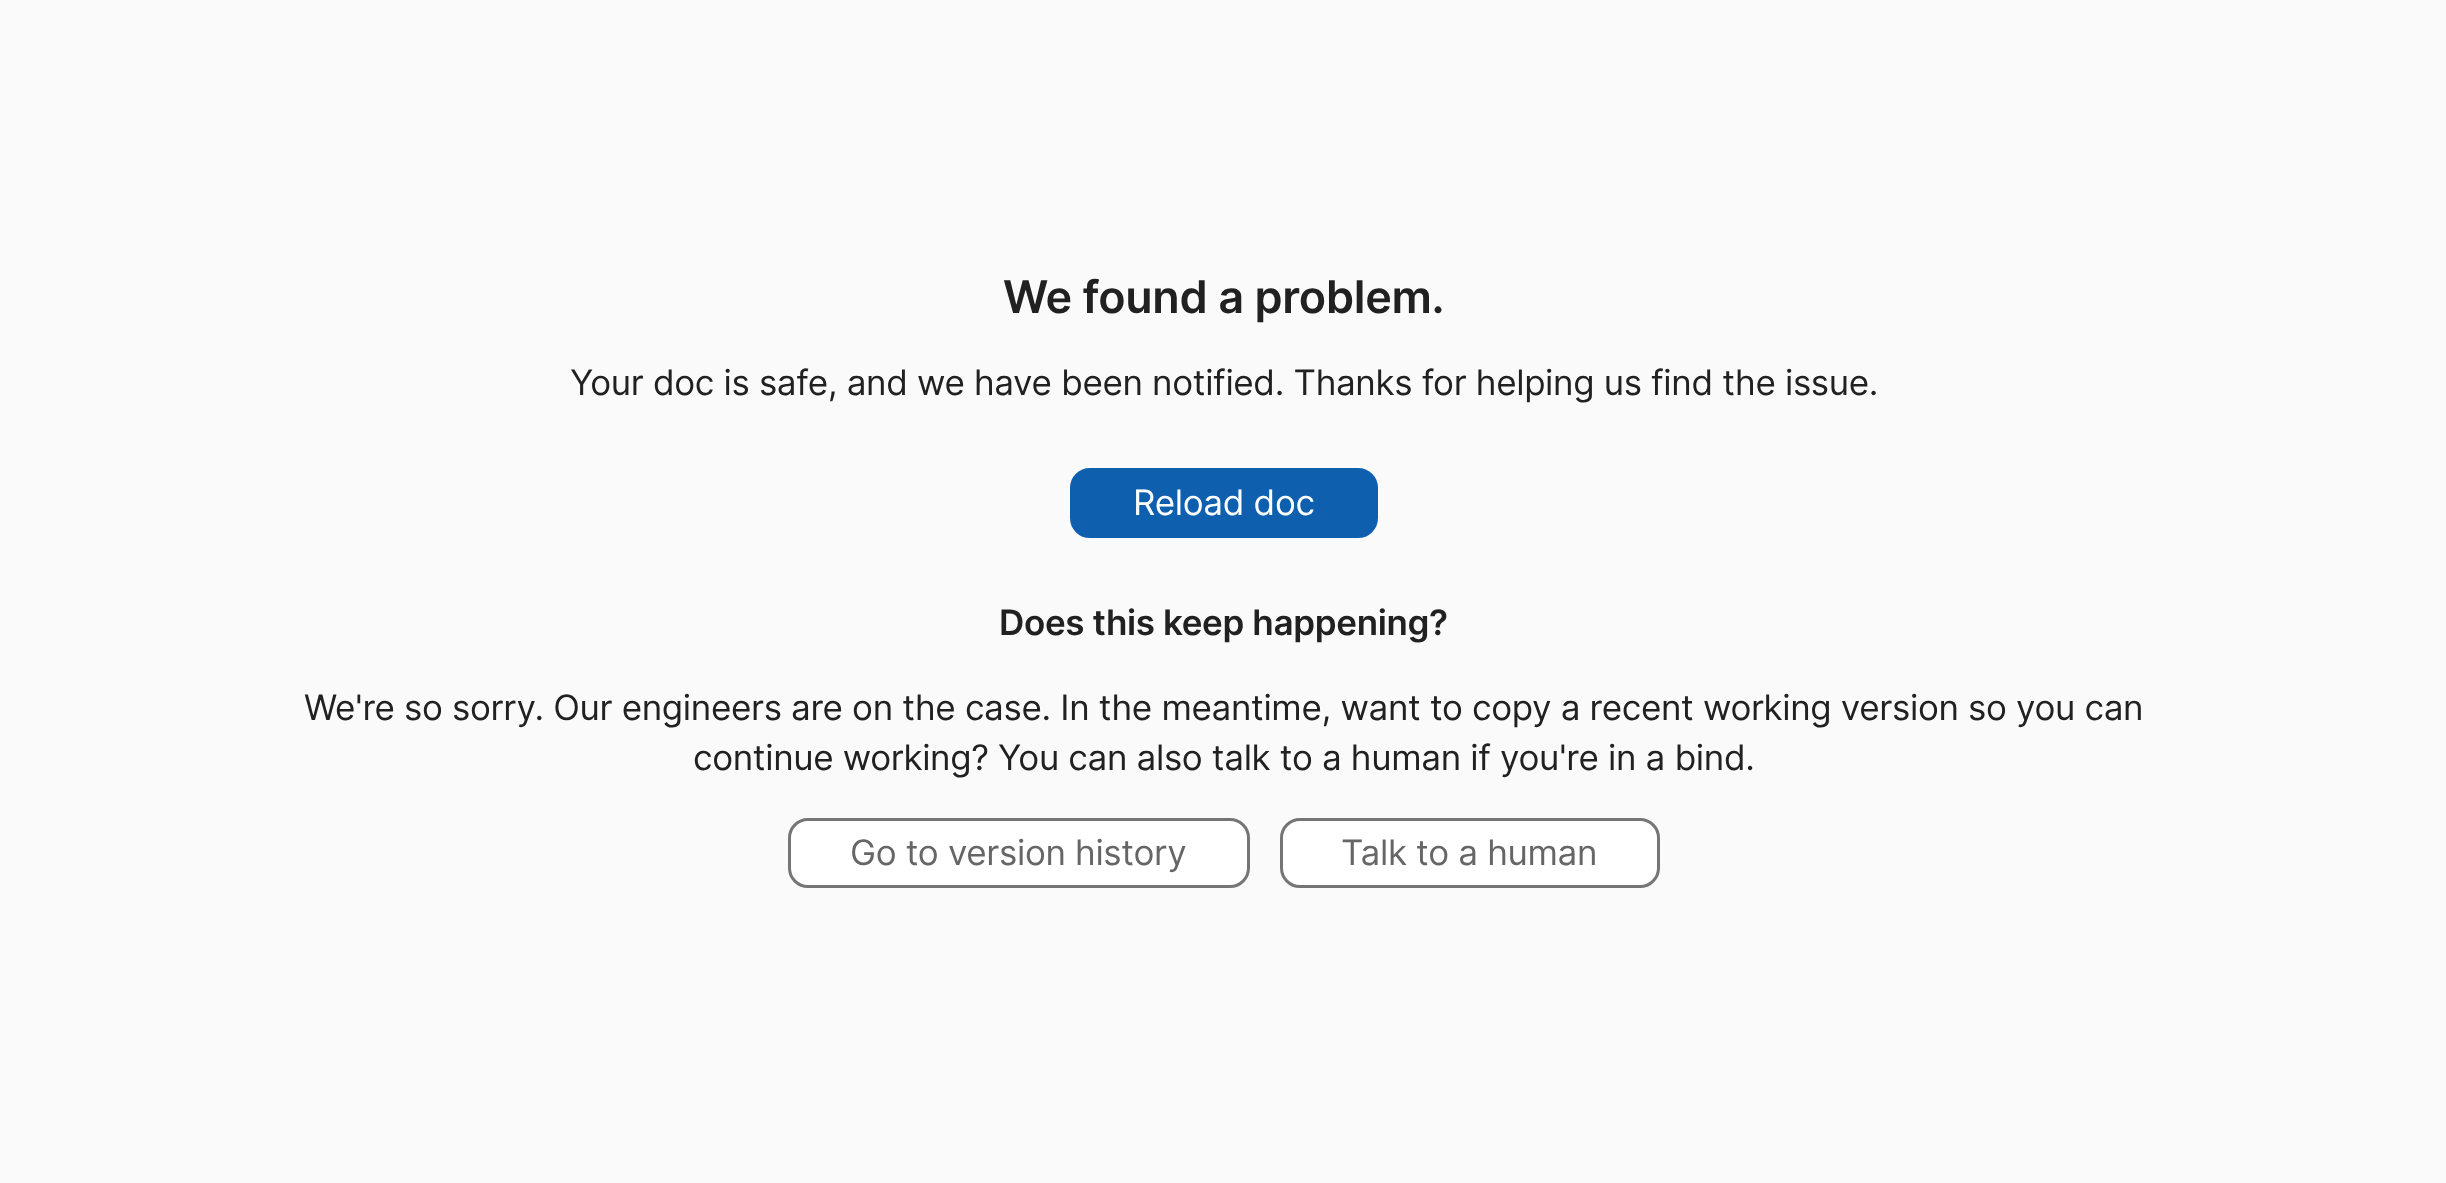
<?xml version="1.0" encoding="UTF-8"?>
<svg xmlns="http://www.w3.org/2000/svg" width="2446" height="1183">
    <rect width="100%" height="100%" fill="#FAFAFA"/>
    <text x="1003" y="313" font-family="Inter" font-size="45" font-weight="600" letter-spacing="-0.35" fill="#212121">We found a problem.</text>
    <text x="570" y="395" font-family="Inter" font-size="35" letter-spacing="-0.35" fill="#212121">Your doc is safe, and we have been notified. Thanks for helping us find the issue.</text>
    <rect x="1071.5" y="469.5" width="305" height="67" rx="18.5" fill="#0F5FAF" stroke="#0F5FAF" stroke-width="3"/>
    <text x="1133" y="515" font-family="Inter" font-size="35" letter-spacing="-0.35" fill="#FFFFFF">Reload doc</text>
    <text x="999" y="635" font-family="Inter" font-size="35" font-weight="600" letter-spacing="-0.35" fill="#212121">Does this keep happening?</text>
    <text x="304" y="720" font-family="Inter" font-size="35" letter-spacing="-0.35" fill="#212121">We're so sorry. Our engineers are on the case. In the meantime, want to copy a recent working version so you can</text>
    <text x="693" y="770" font-family="Inter" font-size="35" letter-spacing="-0.35" fill="#212121">continue working? You can also talk to a human if you're in a bind.</text>
    <rect x="789.5" y="819.5" width="459" height="67" rx="18.5" fill="#FFFFFF" stroke="#757575" stroke-width="3"/>
    <text x="850" y="865" font-family="Inter" font-size="35" letter-spacing="-0.35" fill="#666666">Go to version history</text>
    <rect x="1281.5" y="819.5" width="377" height="67" rx="18.5" fill="#FFFFFF" stroke="#757575" stroke-width="3"/>
    <text x="1341" y="865" font-family="Inter" font-size="35" letter-spacing="-0.35" fill="#666666">Talk to a human</text>
</svg>
